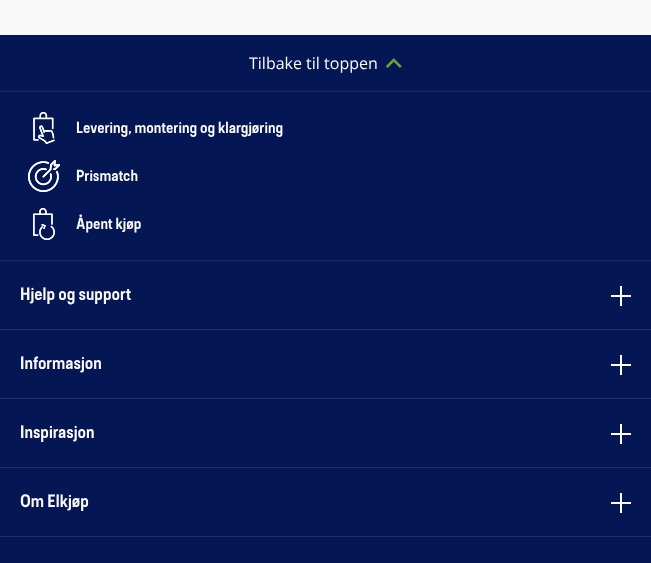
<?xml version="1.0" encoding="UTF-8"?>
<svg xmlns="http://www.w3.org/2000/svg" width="651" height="563">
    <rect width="100%" height="100%" fill="#F9F9F9"/>
    <rect x="0" y="35" width="651" height="528" fill="#041653"/>
    <text x="249" y="69" font-family="Open Sans" font-size="16" fill="#FAFAFA">Tilbake til toppen</text>
    <image x="386" y="58" width="16" height="10" href="img_01.png"/>
    <rect x="0" y="91" width="651" height="1" fill="#1D2D64"/>
    <rect x="0" y="260" width="651" height="1" fill="#1D2D64"/>
    <image x="33" y="112" width="22" height="32" href="img_02.png"/>
    <text x="76" y="133" font-family="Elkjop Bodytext" font-size="16" font-weight="600" fill="#FAFAFA">Levering, montering og klargjøring</text>
    <image x="28" y="160" width="32" height="32" href="img_03.png"/>
    <text x="76" y="181" font-family="Elkjop Bodytext" font-size="16" font-weight="600" fill="#FAFAFA">Prismatch</text>
    <image x="33" y="208" width="22" height="32" href="img_04.png"/>
    <text x="76" y="229" font-family="Elkjop Bodytext" font-size="16" font-weight="600" fill="#FAFAFA">Åpent kjøp</text>
    <rect x="0" y="329" width="651" height="1" fill="#212F60"/>
    <text x="20" y="300" font-family="Elkjop Bodytext" font-size="18" font-weight="600" fill="#FAFAFA">Hjelp og support</text>
    <rect x="611" y="295" width="20" height="2" fill="#FFFFFF"/>
    <rect x="620" y="286" width="2" height="20" fill="#FFFFFF"/>
    <rect x="0" y="398" width="651" height="1" fill="#212F60"/>
    <text x="20" y="369" font-family="Elkjop Bodytext" font-size="18" font-weight="600" fill="#FAFAFA">Informasjon</text>
    <rect x="611" y="364" width="20" height="2" fill="#FFFFFF"/>
    <rect x="620" y="355" width="2" height="20" fill="#FFFFFF"/>
    <rect x="0" y="467" width="651" height="1" fill="#212F60"/>
    <text x="20" y="438" font-family="Elkjop Bodytext" font-size="18" font-weight="600" fill="#FAFAFA">Inspirasjon</text>
    <rect x="611" y="433" width="20" height="2" fill="#FFFFFF"/>
    <rect x="620" y="424" width="2" height="20" fill="#FFFFFF"/>
    <rect x="0" y="536" width="651" height="1" fill="#212F60"/>
    <text x="20" y="507" font-family="Elkjop Bodytext" font-size="18" font-weight="600" fill="#FAFAFA">Om Elkjøp</text>
    <rect x="611" y="502" width="20" height="2" fill="#FFFFFF"/>
    <rect x="620" y="493" width="2" height="20" fill="#FFFFFF"/>
</svg>
